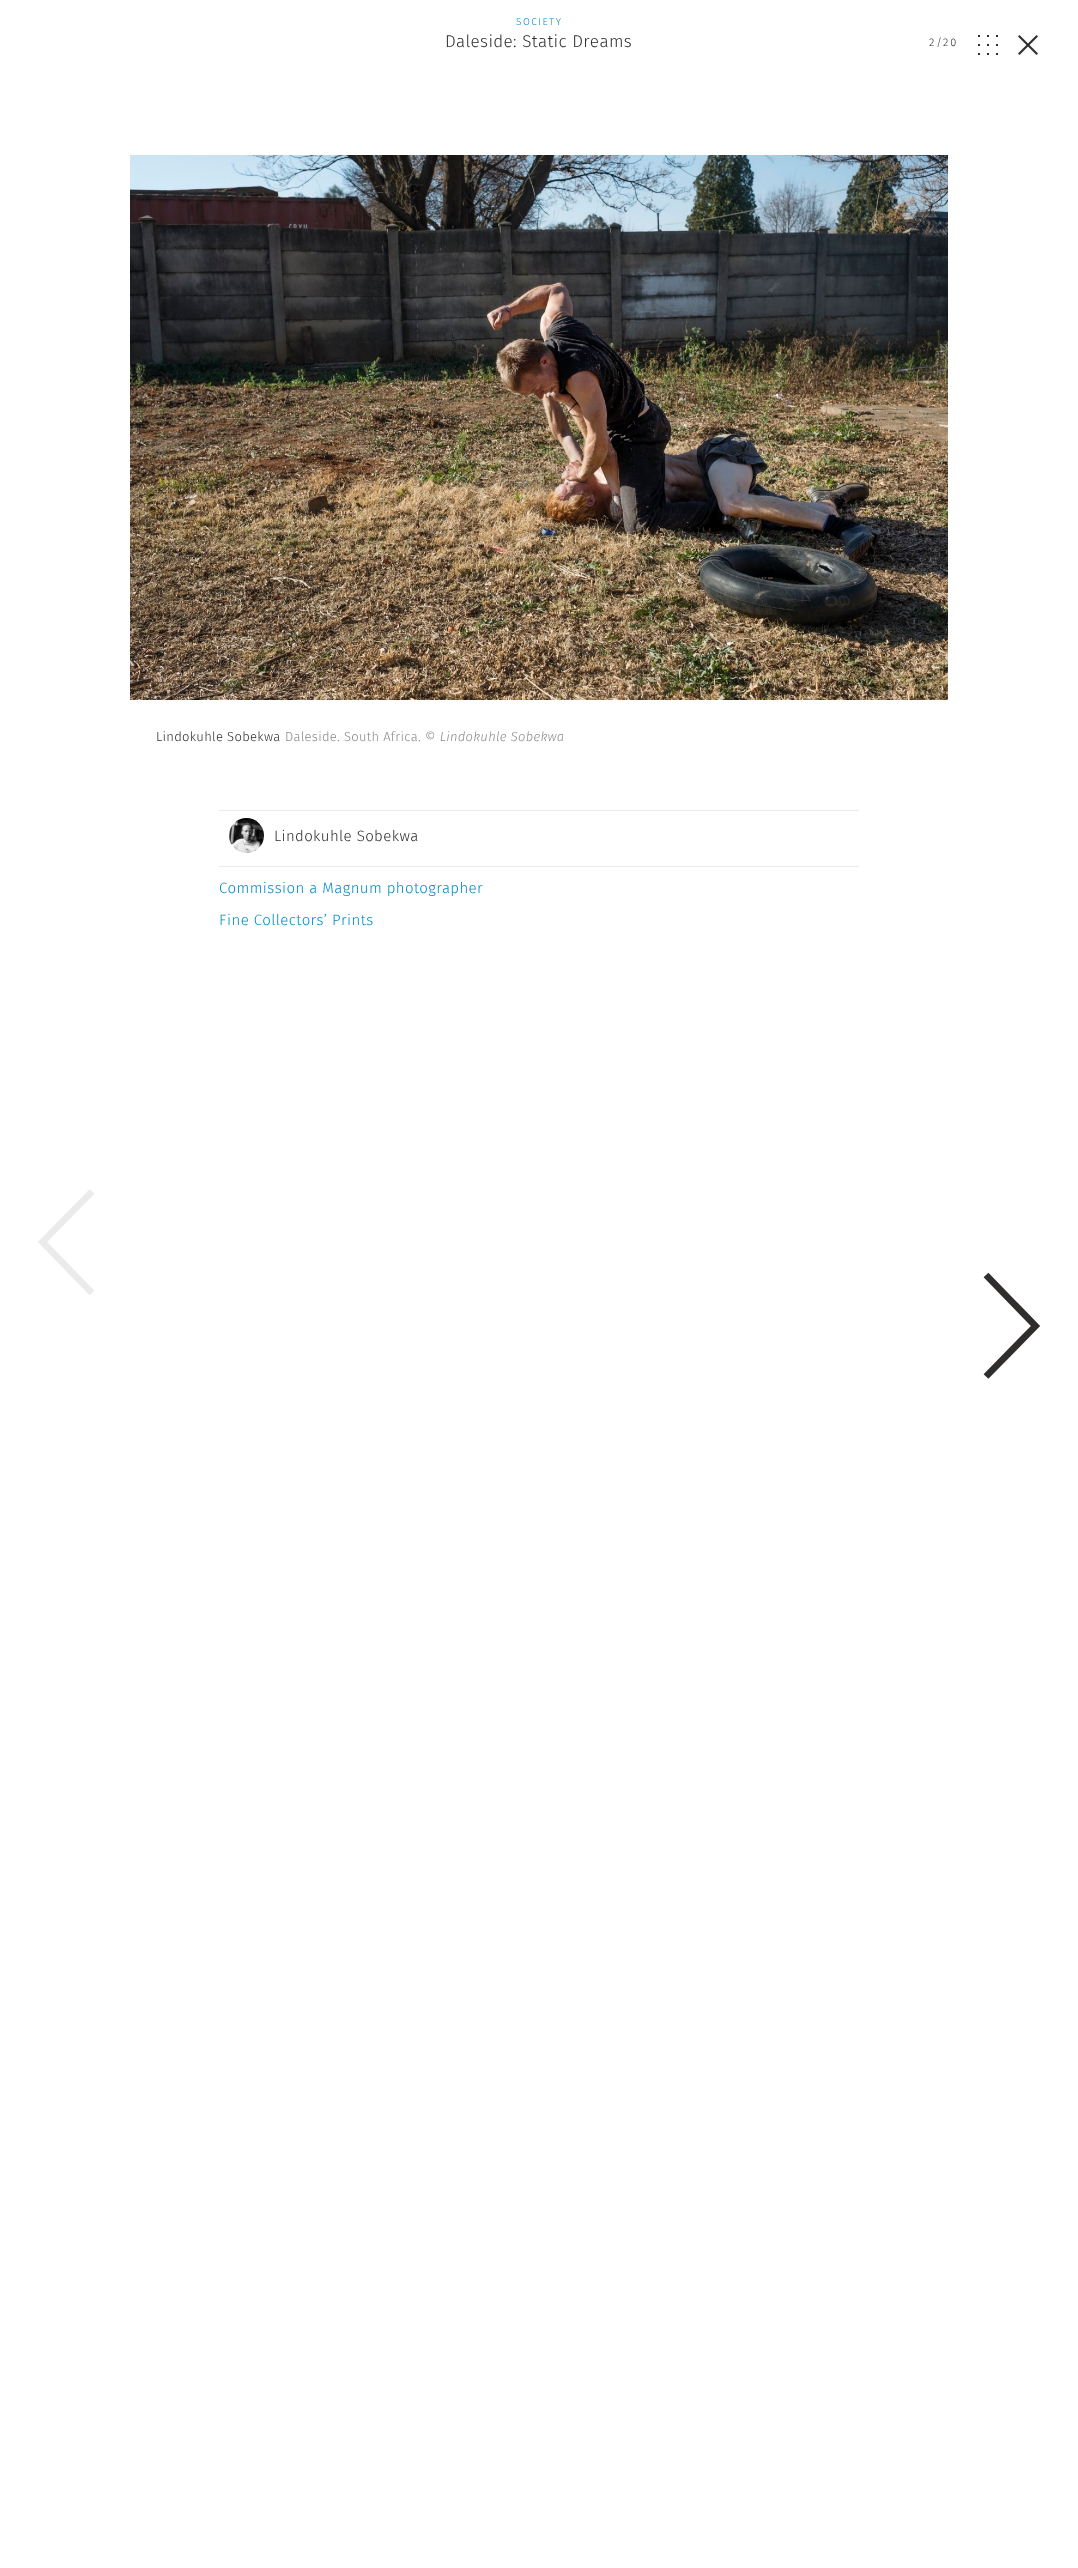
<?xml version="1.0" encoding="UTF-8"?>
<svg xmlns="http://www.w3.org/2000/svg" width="1078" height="2568">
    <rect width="100%" height="100%" fill="#FFFFFF"/>
    <text x="516" y="25" font-family="Fira Sans" font-size="10" font-weight="300" letter-spacing="1.5" fill="#008CCA">SOCIETY</text>
    <text x="445" y="47" font-family="Fira Sans" font-size="17" font-weight="300" letter-spacing="0.4" fill="#302D2D">Daleside: Static Dreams</text>
    <text x="929" y="46" font-family="Fira Sans" font-size="11" font-weight="300" letter-spacing="2" fill="#302D2D">2/</text>
    <text x="943" y="46" font-family="Fira Sans" font-size="11" font-weight="300" letter-spacing="2" fill="#302D2D">20</text>
    <image x="978" y="35" width="20" height="20" href="img_01.png"/>
    <path d="M 1019.5 35 L 1038 53.5 L 1036.5 55 L 1018 36.5 Z" fill="#302D2D"/>
    <path d="M 1018 53.5 L 1036.5 35 L 1038 36.5 L 1019.5 55 Z" fill="#302D2D"/>
    <image x="130" y="155" width="818" height="545" href="img_02.png"/>
    <text x="156" y="741" font-family="Fira Sans" font-size="13" font-weight="300" letter-spacing="0.3" fill="#302D2D">Lindokuhle Sobekwa</text>
    <text x="285" y="741" font-family="Fira Sans" font-size="13" font-weight="300" letter-spacing="0.3" fill="#898989">Daleside. South Africa.</text>
    <text x="425" y="741" font-family="Fira Sans" font-size="13" font-weight="300" font-style="italic" letter-spacing="0.3" fill="#898989">© Lindokuhle Sobekwa</text>
    <rect x="219" y="810" width="640" height="1" fill="#EBEBEB"/>
    <image x="229" y="818" width="35" height="35" href="img_03.png"/>
    <text x="274" y="841" font-family="Fira Sans" font-size="15" font-weight="300" letter-spacing="0.4" fill="#302D2D">Lindokuhle Sobekwa</text>
    <rect x="219" y="866" width="640" height="1" fill="#EBEBEB"/>
    <text x="219" y="893" font-family="Fira Sans" font-size="15" font-weight="300" letter-spacing="0.4" fill="#008CCA">Commission a Magnum photographer</text>
    <text x="219" y="925" font-family="Fira Sans" font-size="15" font-weight="300" letter-spacing="0.4" fill="#008CCA">Fine Collectors’ Prints</text>
    <path d="M 92 1191.5 L 42.5 1242 L 92 1293" fill="none" stroke="#EBEBEB" stroke-width="6.7"/>
    <path d="M 986 1376.5 L 1035.5 1326 L 986 1275" fill="none" stroke="#302D2D" stroke-width="6.7"/>
</svg>
